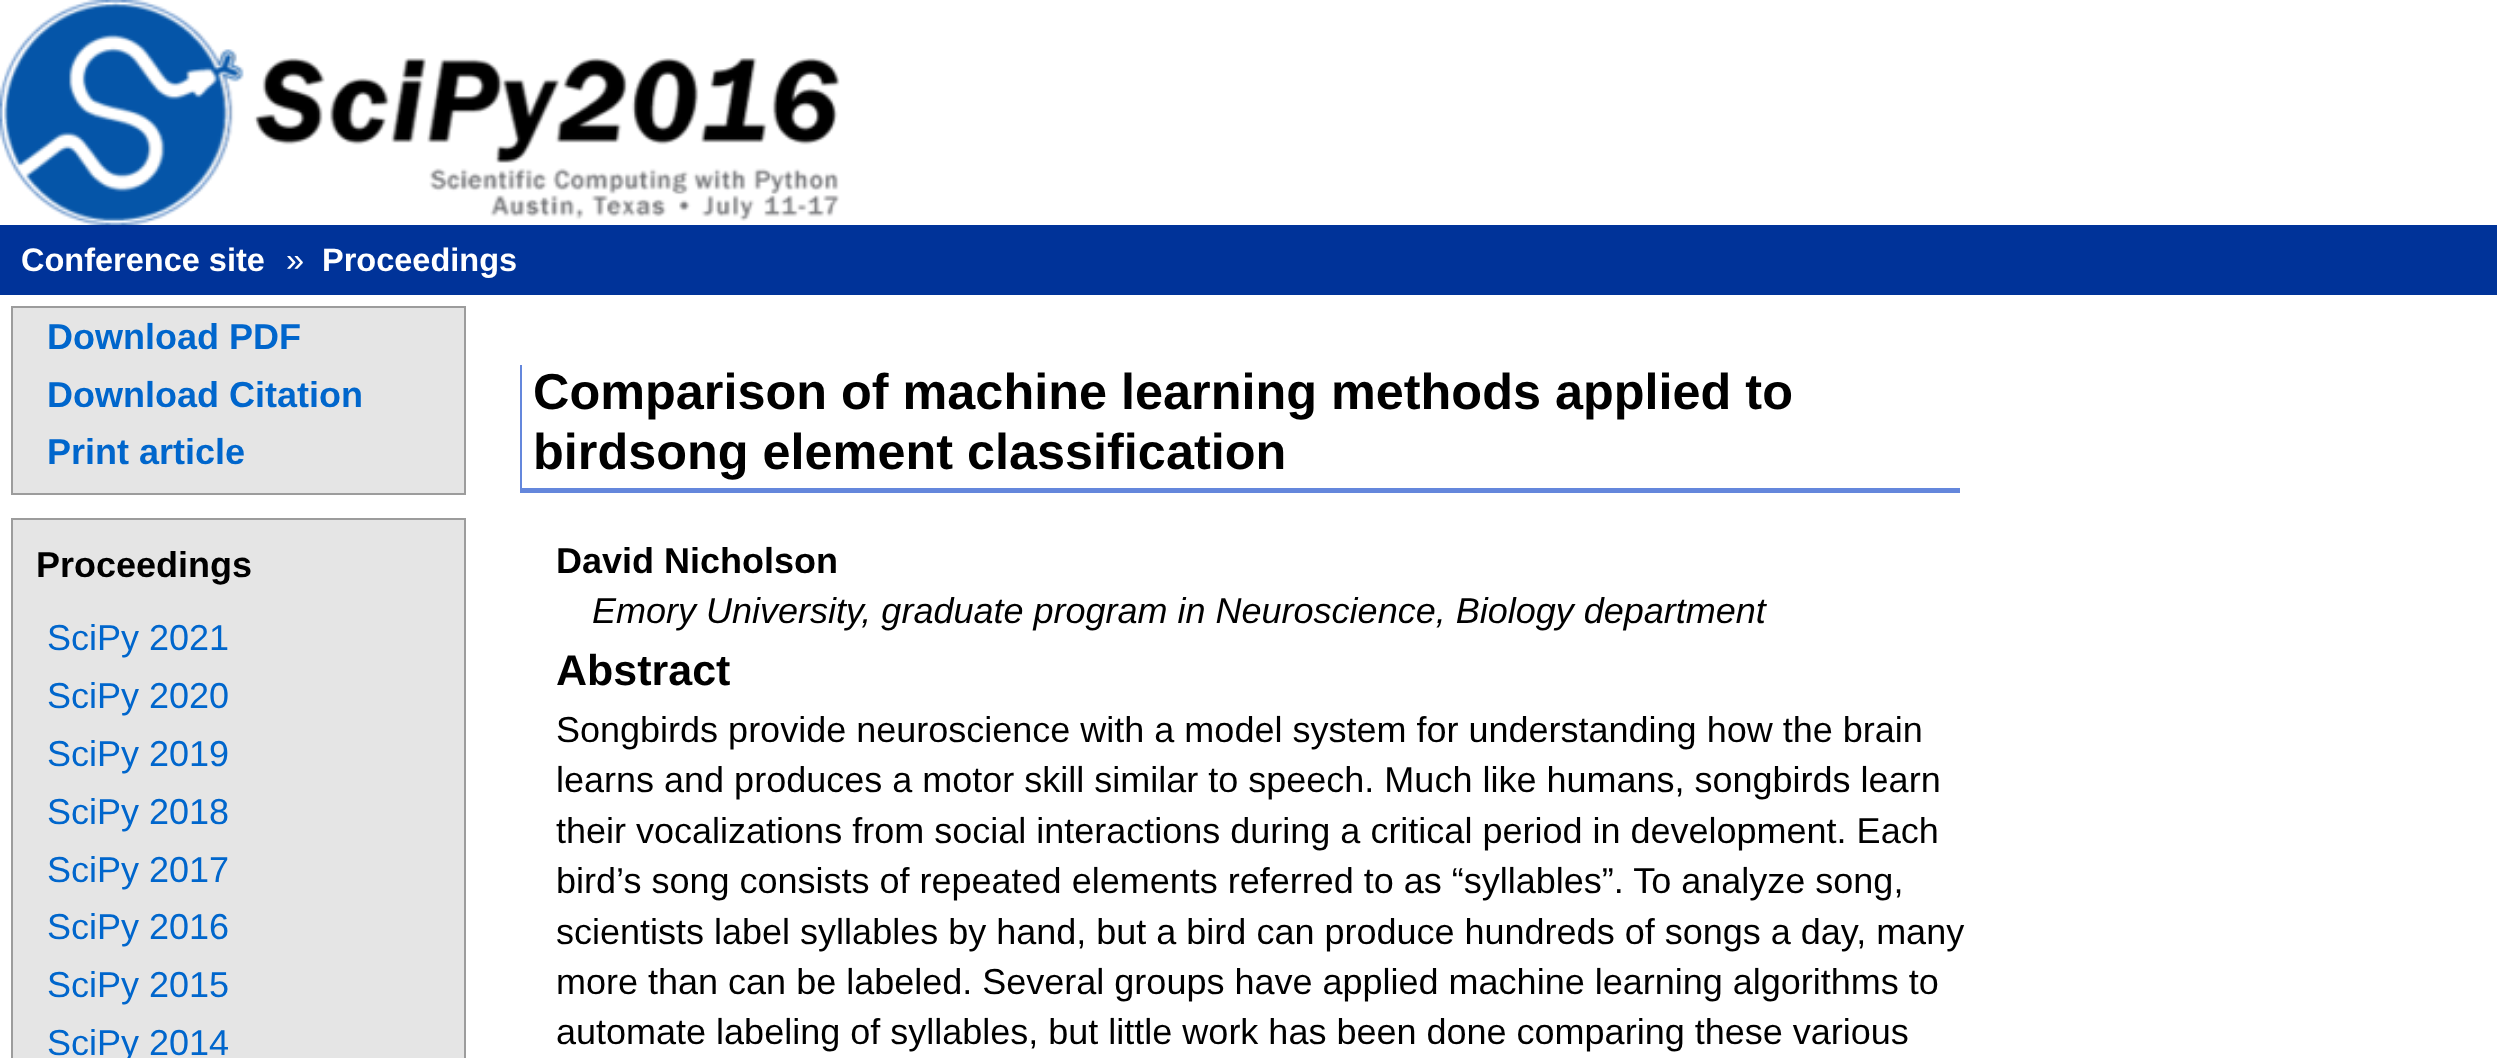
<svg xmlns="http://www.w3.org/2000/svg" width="2497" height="1058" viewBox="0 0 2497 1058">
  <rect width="100%" height="100%" fill="rgb(255,255,255)"/>
  <image x="0" y="0" width="840" height="225" href="pic1.png"/>
  <rect x="0" y="225" width="2497" height="70" fill="rgb(0,51,153)"/>
  <text x="21" y="271" font-family="Liberation Sans" font-size="32.5" font-weight="bold" fill="rgb(255,255,255)">Conference site</text>
  <text x="286" y="271" font-family="Liberation Sans" font-size="32.5" fill="rgb(255,255,255)">»</text>
  <text x="322" y="271" font-family="Liberation Sans" font-size="32.5" font-weight="bold" fill="rgb(255,255,255)">Proceedings</text>
  <rect x="12" y="307" width="453" height="187" fill="rgb(229,229,229)" stroke="rgb(156,156,156)" stroke-width="2"/>
  <g font-family="Liberation Sans" font-size="36" font-weight="bold" fill="rgb(0,102,204)">
    <text>
      <tspan x="47" y="349">Download PDF</tspan>
      <tspan x="47" y="407">Download Citation</tspan>
      <tspan x="47" y="464">Print article</tspan>
    </text>
  </g>
  <rect x="12" y="519" width="453" height="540" fill="rgb(229,229,229)" stroke="rgb(156,156,156)" stroke-width="2"/>
  <text x="36" y="577" font-family="Liberation Sans" font-size="36" font-weight="bold" fill="rgb(0,0,0)">Proceedings</text>
  <g font-family="Liberation Sans" font-size="36" fill="rgb(0,102,204)">
    <text>
      <tspan x="47" y="650">SciPy 2021</tspan>
      <tspan x="47" y="708">SciPy 2020</tspan>
      <tspan x="47" y="766">SciPy 2019</tspan>
      <tspan x="47" y="824">SciPy 2018</tspan>
      <tspan x="47" y="882">SciPy 2017</tspan>
      <tspan x="47" y="939">SciPy 2016</tspan>
      <tspan x="47" y="997">SciPy 2015</tspan>
      <tspan x="47" y="1055">SciPy 2014</tspan>
    </text>
  </g>
  <rect x="520" y="488" width="1440" height="5" fill="rgb(100,135,220)"/>
  <rect x="520" y="365" width="2" height="128" fill="rgb(100,135,220)"/>
  <g font-family="Liberation Sans" font-size="50.4" font-weight="bold" fill="rgb(0,0,0)">
    <text>
      <tspan x="533" y="409">Comparison of machine learning methods applied to</tspan>
      <tspan x="533" y="469">birdsong element classification</tspan>
    </text>
  </g>
  <text x="556" y="573" font-family="Liberation Sans" font-size="36" font-weight="bold" fill="rgb(0,0,0)">David Nicholson</text>
  <text x="592" y="623" font-family="Liberation Sans" font-size="36" font-style="italic" fill="rgb(0,0,0)">Emory University, graduate program in Neuroscience, Biology department</text>
  <text x="556" y="685" font-family="Liberation Sans" font-size="43" font-weight="bold" fill="rgb(0,0,0)">Abstract</text>
  <g font-family="Liberation Sans" font-size="36" fill="rgb(0,0,0)">
    <text>
      <tspan x="556" y="742">Songbirds provide neuroscience with a model system for understanding how the brain</tspan>
      <tspan x="556" y="792">learns and produces a motor skill similar to speech. Much like humans, songbirds learn</tspan>
      <tspan x="556" y="843">their vocalizations from social interactions during a critical period in development. Each</tspan>
      <tspan x="556" y="893">bird’s song consists of repeated elements referred to as “syllables”. To analyze song,</tspan>
      <tspan x="556" y="944">scientists label syllables by hand, but a bird can produce hundreds of songs a day, many</tspan>
      <tspan x="556" y="994">more than can be labeled. Several groups have applied machine learning algorithms to</tspan>
      <tspan x="556" y="1044">automate labeling of syllables, but little work has been done comparing these various</tspan>
    </text>
  </g>
</svg>
